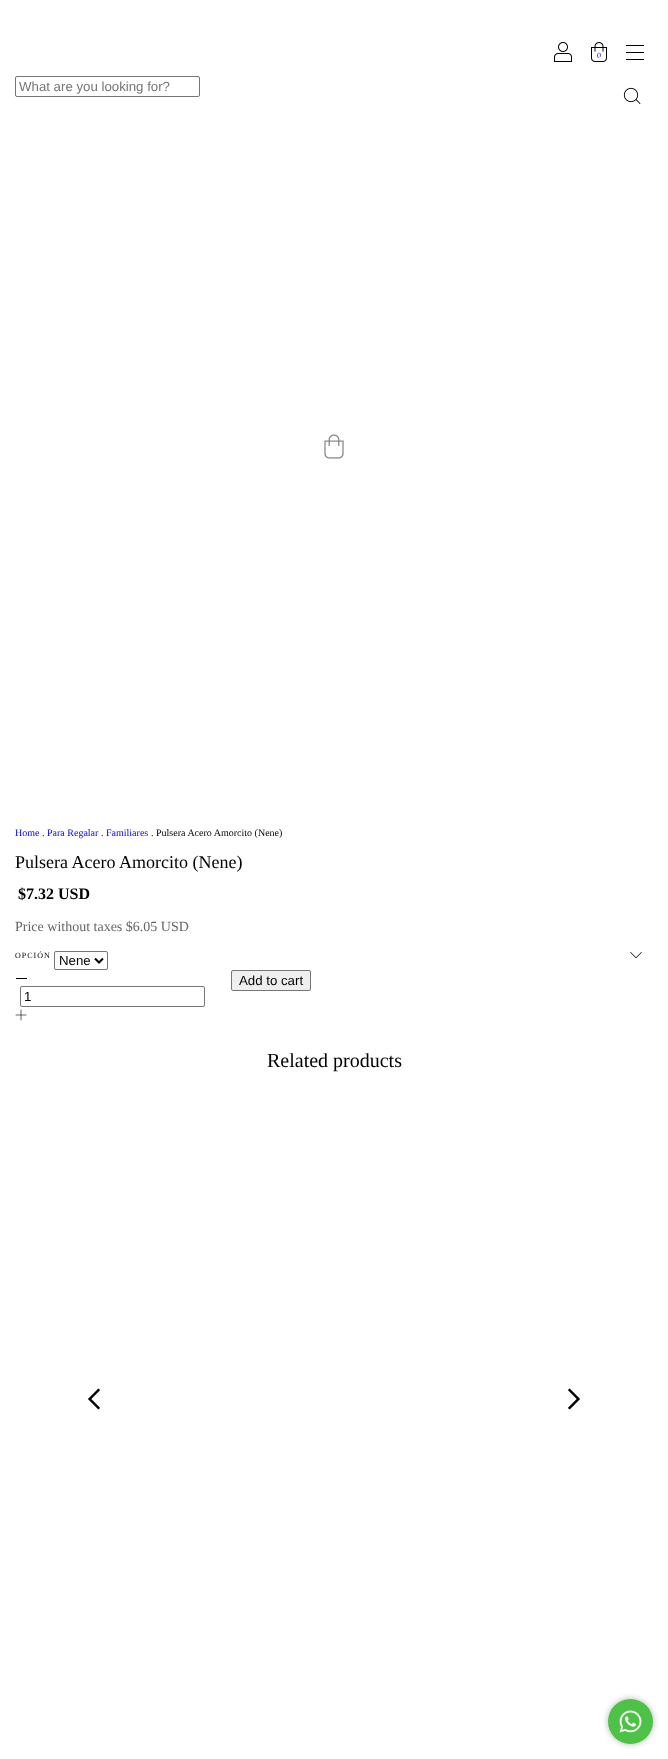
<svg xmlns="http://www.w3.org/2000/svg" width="668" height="1759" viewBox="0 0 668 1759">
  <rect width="100%" height="100%" fill="rgb(255,255,255)"/>
  <image x="554" y="42" width="18" height="20" href="pic1.png"/>
  <image x="591" y="42" width="16" height="20" href="pic2.png"/>
  <text x="597" y="58" font-family="Liberation Serif" font-size="8" fill="rgb(0,0,238)">0</text>
  <image x="626" y="45" width="18" height="15" href="pic3.png"/>
  <rect x="15.5" y="76.5" width="184" height="20" rx="1.5" fill="none" stroke="rgb(118,118,118)"/>
  <text x="19" y="91" font-family="Liberation Sans" font-size="13.25" fill="rgb(117,117,117)">What are you looking for?</text>
  <image x="623" y="87" width="18" height="17" href="pic4.png"/>
  <image x="324" y="434" width="20" height="25" href="pic5.png"/>
  <text x="15" y="836" font-family="Liberation Serif" font-size="10" fill="rgb(0,0,238)">Home</text>
  <text x="42" y="836" font-family="Liberation Serif" font-size="10" fill="rgb(0,0,0)">.</text>
  <text x="47" y="836" font-family="Liberation Serif" font-size="10" fill="rgb(0,0,238)">Para Regalar</text>
  <text x="101" y="836" font-family="Liberation Serif" font-size="10" fill="rgb(0,0,0)">.</text>
  <text x="106" y="836" font-family="Liberation Serif" font-size="10" fill="rgb(0,0,238)">Familiares</text>
  <text x="151" y="836" font-family="Liberation Serif" font-size="10" fill="rgb(0,0,0)">. Pulsera Acero Amorcito (Nene)</text>
  <text x="15" y="868" font-family="Liberation Serif" font-size="18" fill="rgb(0,0,0)">Pulsera Acero Amorcito (Nene)</text>
  <text x="18" y="899" font-family="Liberation Serif" font-size="16" font-weight="bold" fill="rgb(0,0,0)">$7.32 USD</text>
  <text x="15" y="931" font-family="Liberation Serif" font-size="14" fill="rgb(102,102,102)">Price without taxes $6.05 USD</text>
  <text x="15" y="958" font-family="Liberation Serif" font-size="8" letter-spacing="1" fill="rgb(0,0,0)">OPCIÓN</text>
  <rect x="54.5" y="951.5" width="53" height="18" rx="1.5" fill="none" stroke="rgb(118,118,118)"/>
  <path d="M95 958.5L99 962.5L103 958.5" fill="none" stroke="rgb(0,0,0)" stroke-width="2"/>
  <text x="59" y="965" font-family="Liberation Sans" font-size="13.25" fill="rgb(0,0,0)">Nene</text>
  <image x="630" y="952" width="12" height="7" href="pic6.png"/>
  <rect x="231.5" y="970.5" width="79" height="20" rx="1.5" fill="rgb(239,239,239)" stroke="rgb(118,118,118)"/>
  <text x="239" y="985" font-family="Liberation Sans" font-size="13.25" fill="rgb(0,0,0)">Add to cart</text>
  <rect x="16" y="978" width="11" height="1" fill="rgb(0,0,0)"/>
  <rect x="20.5" y="986.5" width="184" height="20" rx="1.5" fill="none" stroke="rgb(118,118,118)"/>
  <text x="24" y="1001" font-family="Liberation Sans" font-size="13.25" fill="rgb(0,0,0)">1</text>
  <image x="15" y="1009" width="12" height="12" href="pic7.png"/>
  <text x="267" y="1067" font-family="Liberation Serif" font-size="20" fill="rgb(0,0,0)">Related products</text>
  <image x="88" y="1388" width="12" height="22" href="pic8.png"/>
  <image x="568" y="1388" width="12" height="22" href="pic9.png"/>
  <rect x="608" y="1699" width="45" height="45" rx="22.5" fill="rgba(0,0,0,0.3)" filter="blur(3px)"/>
  <circle cx="630.5" cy="1721.5" r="22.5" fill="rgb(77,194,71)"/>
  <image x="619" y="1710" width="23" height="23" href="pic10.png"/>
</svg>
